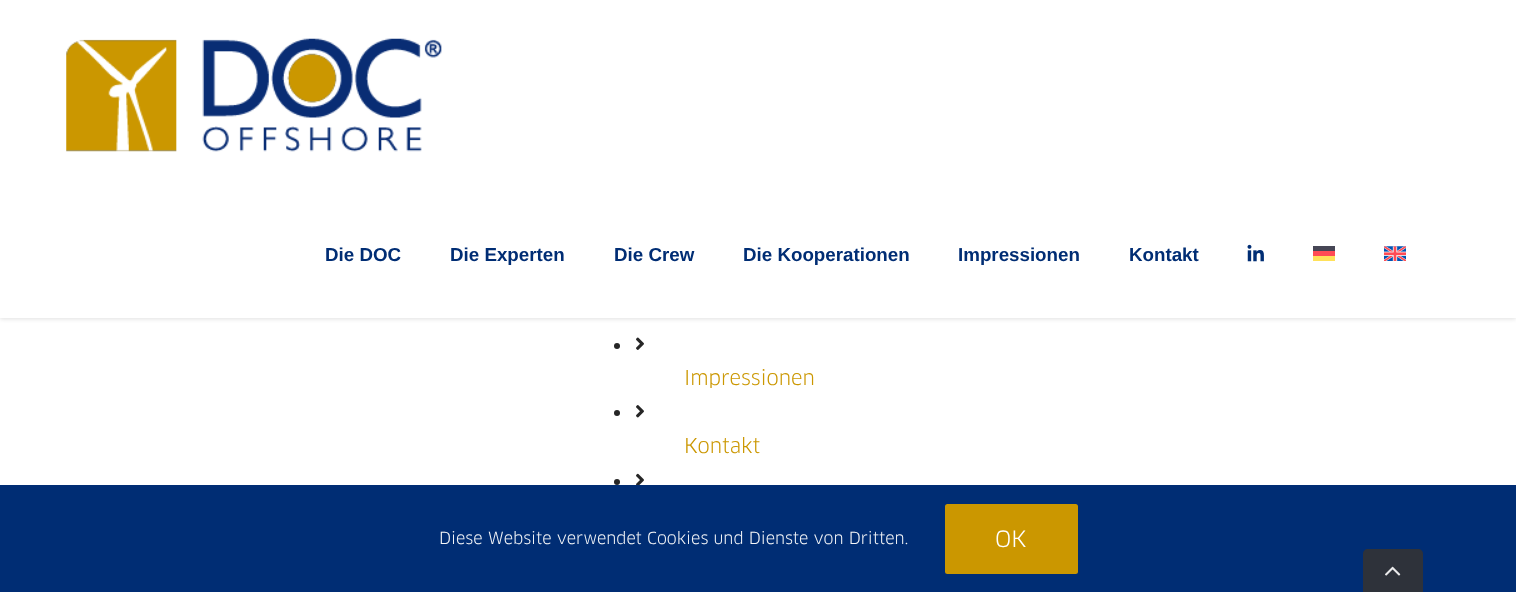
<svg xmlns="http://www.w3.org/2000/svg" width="1516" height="592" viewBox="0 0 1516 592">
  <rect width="100%" height="100%" fill="rgb(255,255,255)"/>
  <rect x="0" y="1" width="1516" height="318" fill="rgba(0,0,0,0.12)" filter="blur(2px)"/>
  <rect x="0" y="0" width="1516" height="318" fill="rgb(255,255,255)"/>
  <image x="66" y="38" width="376" height="114" href="pic1.png"/>
  <g font-family="Liberation Sans" font-size="18.75" font-weight="bold" fill="rgb(0,45,116)">
    <text x="325" y="261">Die DOC</text>
    <text x="450" y="261">Die Experten</text>
    <text x="614" y="261">Die Crew</text>
    <text x="743" y="261">Die Kooperationen</text>
    <text x="958" y="261">Impressionen</text>
    <text x="1129" y="261">Kontakt</text>
  </g>
  <image x="1247" y="244" width="17" height="18" href="pic2.png"/>
  <rect x="1313" y="251" width="22" height="5" fill="rgb(255,75,85)"/>
  <rect x="1313" y="256" width="22" height="5" fill="rgb(255,225,90)"/>
  <rect x="1313" y="246" width="22" height="5" fill="rgb(70,70,85)"/>
  <image x="1384" y="246" width="22" height="15" href="pic3.png"/>
  <circle cx="617" cy="346" r="3" fill="rgb(38,38,38)"/>
  <image x="636" y="337" width="8" height="13" href="pic4.png"/>
  <text x="684" y="385" font-family="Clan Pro" font-size="20" fill="rgb(203,151,0)">Impressionen</text>
  <circle cx="617" cy="413" r="3" fill="rgb(38,38,38)"/>
  <image x="636" y="405" width="8" height="13" href="pic5.png"/>
  <text x="684" y="453" font-family="Clan Pro" font-size="20" fill="rgb(203,151,0)">Kontakt</text>
  <circle cx="617" cy="482" r="3" fill="rgb(38,38,38)"/>
  <image x="636" y="473" width="8" height="12" href="pic6.png"/>
  <rect x="0" y="485" width="1516" height="107" fill="rgb(0,45,116)"/>
  <text x="439" y="544" font-family="Clan Pro" font-size="16.25" fill="rgb(244,246,248)">Diese Website verwendet Cookies und Dienste von Dritten.</text>
  <rect x="945" y="504" width="133" height="70" rx="2.5" fill="rgb(203,151,0)"/>
  <text x="995" y="547" font-family="Clan Pro" font-size="22" fill="rgb(255,255,255)">OK</text>
  <path d="M1368 549H1418C1421 549 1423 551 1423 554V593H1363V554C1363 551 1365 549 1368 549Z" fill="rgb(46,50,58)"/>
  <image x="1385" y="566" width="16" height="10" href="pic7.png"/>
</svg>
